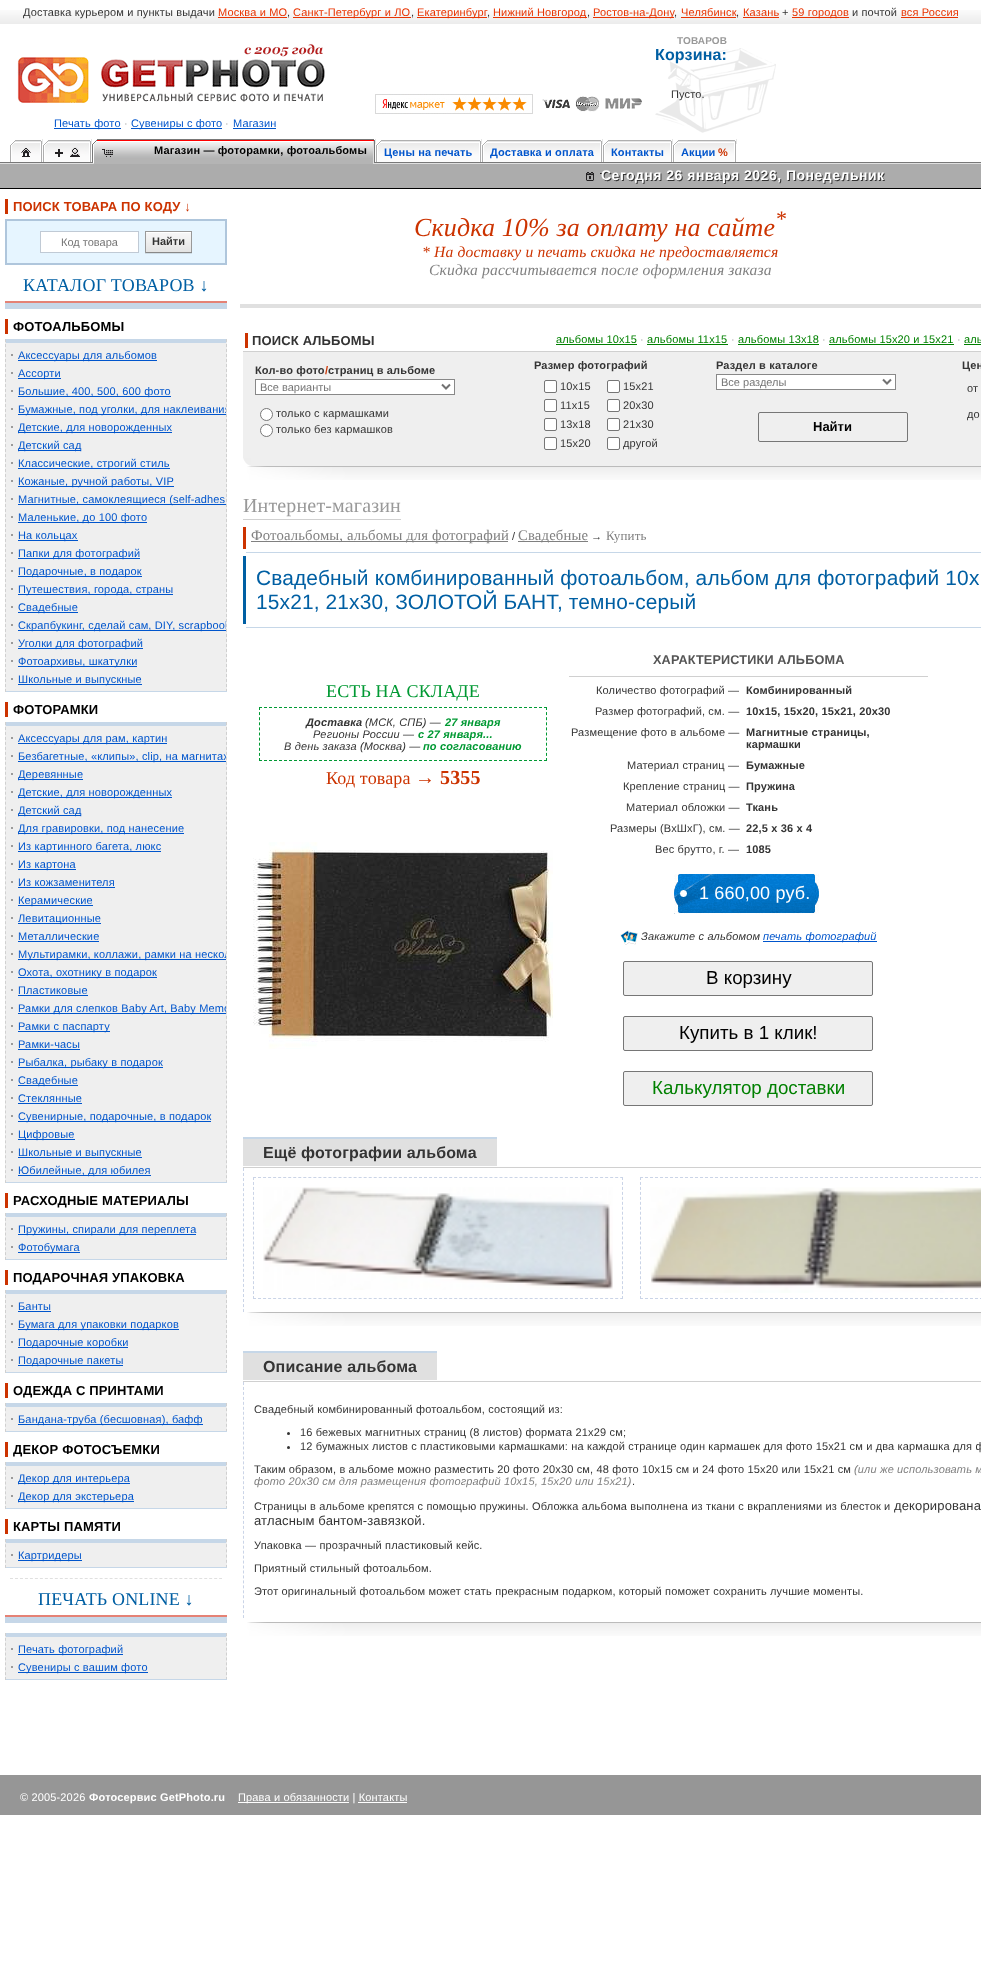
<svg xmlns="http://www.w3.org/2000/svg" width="981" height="1983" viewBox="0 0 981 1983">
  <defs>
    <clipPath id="clip1"><rect x="44" y="236" width="91" height="12"/></clipPath>
    <clipPath id="clip2"><rect x="6" y="343" width="220" height="348"/></clipPath>
    <clipPath id="clip3"><rect x="6" y="726" width="220" height="456"/></clipPath>
  </defs>
  <rect width="100%" height="100%" fill="rgb(255,255,255)"/>
  <image x="0" y="10" width="981" height="14" href="pic1.png"/>
  <text x="23" y="16" font-family="Liberation Sans" font-size="11" letter-spacing="0.15" fill="rgb(52,52,52)">Доставка курьером и пункты выдачи</text>
  <text x="218" y="16" font-family="Liberation Sans" font-size="11" letter-spacing="0.15" fill="rgb(233,51,1)">Москва и МО</text>
  <rect x="218" y="17" width="69" height="1" fill="rgb(233,51,1)"/>
  <text x="287" y="16" font-family="Liberation Sans" font-size="11" letter-spacing="0.15" fill="rgb(52,52,52)">,</text>
  <rect x="293" y="17" width="118" height="1" fill="rgb(233,51,1)"/>
  <text x="293" y="16" font-family="Liberation Sans" font-size="11" letter-spacing="0.15" fill="rgb(233,51,1)">Санкт-Петербург и ЛО</text>
  <text x="411" y="16" font-family="Liberation Sans" font-size="11" letter-spacing="0.15" fill="rgb(52,52,52)">,</text>
  <rect x="417" y="17" width="70" height="1" fill="rgb(233,51,1)"/>
  <text x="417" y="16" font-family="Liberation Sans" font-size="11" letter-spacing="0.15" fill="rgb(233,51,1)">Екатеринбург</text>
  <rect x="493" y="17" width="94" height="1" fill="rgb(233,51,1)"/>
  <text x="493" y="16" font-family="Liberation Sans" font-size="11" letter-spacing="0.15" fill="rgb(233,51,1)">Нижний Новгород</text>
  <rect x="593" y="17" width="81" height="1" fill="rgb(233,51,1)"/>
  <g font-family="Liberation Sans" font-size="11" letter-spacing="0.15" fill="rgb(233,51,1)">
    <text x="593" y="16">Ростов-на-Дону</text>
    <text x="681" y="16">Челябинск</text>
  </g>
  <rect x="681" y="17" width="55" height="1" fill="rgb(233,51,1)"/>
  <text x="743" y="16" font-family="Liberation Sans" font-size="11" letter-spacing="0.15" fill="rgb(233,51,1)">Казань</text>
  <rect x="743" y="17" width="36" height="1" fill="rgb(233,51,1)"/>
  <text x="782" y="16" font-family="Liberation Sans" font-size="11" letter-spacing="0.15" fill="rgb(52,52,52)">+</text>
  <rect x="792" y="17" width="57" height="1" fill="rgb(233,51,1)"/>
  <text x="792" y="16" font-family="Liberation Sans" font-size="11" letter-spacing="0.15" fill="rgb(233,51,1)">59 городов</text>
  <text x="852" y="16" font-family="Liberation Sans" font-size="11" letter-spacing="0.15" fill="rgb(52,52,52)">и почтой</text>
  <text x="901" y="16" font-family="Liberation Sans" font-size="11" letter-spacing="0.15" fill="rgb(233,51,1)">вся Россия</text>
  <rect x="901" y="17" width="57" height="1" fill="rgb(233,51,1)"/>
  <g font-family="Liberation Sans" font-size="11" letter-spacing="0.15" fill="rgb(52,52,52)">
    <text x="487" y="16">,</text>
    <text x="587" y="16">,</text>
    <text x="674" y="16">,</text>
    <text x="736" y="16">,</text>
  </g>
  <image x="655" y="48" width="121" height="85" href="pic2.png"/>
  <text x="677" y="44" font-family="Liberation Sans" font-size="10" font-weight="bold" letter-spacing="0.15" fill="rgb(153,153,153)">ТОВАРОВ</text>
  <text x="655" y="60" font-family="Liberation Sans" font-size="16" font-weight="bold" letter-spacing="0.15" fill="rgb(0,95,163)">Корзина:</text>
  <text x="671" y="98" font-family="Liberation Sans" font-size="11" letter-spacing="0.15" fill="rgb(52,52,52)">Пусто.</text>
  <image x="375" y="94" width="158" height="20" href="pic3.png"/>
  <image x="542" y="96" width="100" height="16" href="pic4.png"/>
  <image x="17" y="44" width="308" height="59" href="pic5.png"/>
  <rect x="54" y="128" width="67" height="1" fill="rgb(0,85,204)"/>
  <text x="54" y="127" font-family="Liberation Sans" font-size="11" letter-spacing="0.15" fill="rgb(0,85,204)">Печать фото</text>
  <text x="124" y="127" font-family="Liberation Sans" font-size="11" letter-spacing="0.15" fill="rgb(153,153,153)">·</text>
  <rect x="131" y="128" width="91" height="1" fill="rgb(0,85,204)"/>
  <text x="131" y="127" font-family="Liberation Sans" font-size="11" letter-spacing="0.15" fill="rgb(0,85,204)">Сувениры с фото</text>
  <text x="225" y="127" font-family="Liberation Sans" font-size="11" letter-spacing="0.15" fill="rgb(153,153,153)">·</text>
  <text x="233" y="127" font-family="Liberation Sans" font-size="11" letter-spacing="0.15" fill="rgb(0,85,204)">Магазин</text>
  <rect x="233" y="128" width="43" height="1" fill="rgb(0,85,204)"/>
  <rect x="15" y="139" width="28" height="5" fill="rgb(229,229,229)"/>
  <image x="10" y="139" width="8" height="25" href="pic6.png"/>
  <image x="18" y="139" width="16" height="25" href="pic7.png"/>
  <image x="21" y="148" width="10" height="9" href="pic8.png"/>
  <image x="34" y="139" width="8" height="25" href="pic9.png"/>
  <image x="42" y="144" width="1" height="20" href="pic10.png"/>
  <rect x="48" y="139" width="44" height="5" fill="rgb(229,229,229)"/>
  <image x="43" y="139" width="8" height="25" href="pic6.png"/>
  <image x="51" y="139" width="32" height="25" href="pic11.png"/>
  <image x="55" y="149" width="8" height="8" href="pic12.png"/>
  <image x="70" y="147" width="10" height="10" href="pic13.png"/>
  <image x="83" y="139" width="8" height="25" href="pic9.png"/>
  <image x="91" y="144" width="1" height="20" href="pic10.png"/>
  <rect x="375" y="139" width="1" height="5" fill="rgb(229,229,229)"/>
  <image x="92" y="139" width="8" height="25" href="pic14.png"/>
  <image x="100" y="139" width="267" height="25" href="pic15.png"/>
  <image x="102" y="149" width="11" height="8" href="pic16.png"/>
  <text x="154" y="154" font-family="Liberation Sans" font-size="11" font-weight="bold" letter-spacing="0.15" fill="rgb(0,0,0)">Магазин — фоторамки, фотоальбомы</text>
  <image x="367" y="139" width="8" height="25" href="pic17.png"/>
  <image x="375" y="144" width="1" height="20" href="pic10.png"/>
  <rect x="381" y="139" width="101" height="5" fill="rgb(229,229,229)"/>
  <image x="376" y="139" width="8" height="25" href="pic6.png"/>
  <image x="384" y="139" width="89" height="25" href="pic18.png"/>
  <text x="384" y="156" font-family="Liberation Sans" font-size="11" font-weight="bold" letter-spacing="0.15" fill="rgb(0,85,204)">Цены на печать</text>
  <image x="473" y="139" width="8" height="25" href="pic9.png"/>
  <image x="481" y="144" width="1" height="20" href="pic10.png"/>
  <rect x="487" y="139" width="116" height="5" fill="rgb(229,229,229)"/>
  <image x="482" y="139" width="8" height="25" href="pic6.png"/>
  <image x="490" y="139" width="104" height="25" href="pic19.png"/>
  <text x="490" y="156" font-family="Liberation Sans" font-size="11" font-weight="bold" letter-spacing="0.15" fill="rgb(0,85,204)">Доставка и оплата</text>
  <image x="594" y="139" width="8" height="25" href="pic9.png"/>
  <image x="602" y="144" width="1" height="20" href="pic10.png"/>
  <rect x="608" y="139" width="65" height="5" fill="rgb(229,229,229)"/>
  <image x="603" y="139" width="8" height="25" href="pic6.png"/>
  <image x="611" y="139" width="53" height="25" href="pic20.png"/>
  <text x="611" y="156" font-family="Liberation Sans" font-size="11" font-weight="bold" letter-spacing="0.15" fill="rgb(0,85,204)">Контакты</text>
  <image x="664" y="139" width="8" height="25" href="pic9.png"/>
  <image x="672" y="144" width="1" height="20" href="pic10.png"/>
  <rect x="678" y="139" width="59" height="5" fill="rgb(229,229,229)"/>
  <image x="673" y="139" width="8" height="25" href="pic6.png"/>
  <image x="681" y="139" width="47" height="25" href="pic21.png"/>
  <text x="681" y="156" font-family="Liberation Sans" font-size="11" font-weight="bold" letter-spacing="0.15" fill="rgb(0,85,204)">Акции</text>
  <text x="718" y="156" font-family="Liberation Sans" font-size="11" font-weight="bold" letter-spacing="0.15" fill="rgb(204,51,0)">%</text>
  <image x="728" y="139" width="8" height="25" href="pic9.png"/>
  <image x="736" y="144" width="1" height="20" href="pic10.png"/>
  <image x="0" y="162" width="10" height="2" href="pic22.png"/>
  <image x="737" y="162" width="244" height="2" href="pic23.png"/>
  <rect x="0" y="164" width="981" height="24" fill="rgb(172,172,172)"/>
  <rect x="0" y="188" width="981" height="1" fill="rgb(0,0,0)"/>
  <image x="586" y="172" width="16" height="9" href="pic24.png"/>
  <text x="602" y="181" font-family="Liberation Sans" font-size="14" font-weight="bold" letter-spacing="0.5" fill="rgb(52,52,52)">Сегодня 26 января 2026, Понедельник</text>
  <text x="601" y="180" font-family="Liberation Sans" font-size="14" font-weight="bold" letter-spacing="0.5" fill="rgb(255,255,255)">Сегодня 26 января 2026, Понедельник</text>
  <rect x="5" y="199" width="3" height="15" fill="rgb(204,51,0)"/>
  <text x="13" y="211" font-family="Liberation Sans" font-size="13" font-weight="bold" letter-spacing="0.15" fill="rgb(204,51,0)">ПОИСК ТОВАРА ПО КОДУ ↓</text>
  <rect x="6" y="220" width="220" height="44" fill="rgb(230,245,255)" stroke="rgb(175,198,220)" stroke-width="2"/>
  <rect x="40.5" y="231.5" width="98" height="21" fill="rgb(255,255,255)" stroke="rgb(192,202,213)"/>
  <g clip-path="url(#clip1)">
    <text x="61" y="246" font-family="Liberation Sans" font-size="11" fill="rgb(117,117,117)">Код товара</text>
  </g>
  <rect x="145" y="253" width="47" height="1" fill="rgb(207,221,230)"/>
  <image x="146" y="232" width="45" height="20" href="pic25.png"/>
  <rect x="145" y="231" width="47" height="1" fill="rgb(153,153,153)"/>
  <rect x="191" y="231" width="1" height="22" fill="rgb(153,153,153)"/>
  <rect x="145" y="252" width="47" height="1" fill="rgb(136,136,136)"/>
  <rect x="145" y="231" width="1" height="22" fill="rgb(153,153,153)"/>
  <text x="152" y="245" font-family="Liberation Sans" font-size="11" font-weight="bold" fill="rgb(52,52,52)">Найти</text>
  <text x="23" y="291" font-family="Liberation Serif" font-size="18" letter-spacing="0.15" fill="rgb(0,95,163)">КАТАЛОГ ТОВАРОВ ↓</text>
  <rect x="5" y="301" width="222" height="2" fill="rgb(229,130,117)"/>
  <rect x="5" y="303" width="222" height="6" fill="rgb(198,215,232)"/>
  <rect x="5" y="319" width="3" height="15" fill="rgb(204,51,0)"/>
  <text x="13" y="331" font-family="Liberation Sans" font-size="13" font-weight="bold" letter-spacing="0.15" fill="rgb(0,0,0)">ФОТОАЛЬБОМЫ</text>
  <rect x="5" y="342" width="222" height="349" fill="rgb(239,239,239)"/>
  <path d="M5 339H227L226 343H6Z" fill="rgb(198,215,232)"/>
  <path d="M226.5 339V692" fill="none" stroke="rgb(208,208,208)" stroke-dasharray="3 2"/>
  <rect x="5" y="691" width="222" height="1" fill="rgb(198,215,232)"/>
  <path d="M5.5 339V692" fill="none" stroke="rgb(208,208,208)" stroke-dasharray="3 2"/>
  <rect x="11" y="354" width="2" height="2" fill="rgb(154,154,154)"/>
  <rect x="18" y="360" width="139" height="1" fill="rgb(0,85,204)"/>
  <text x="18" y="359" font-family="Liberation Sans" font-size="11" letter-spacing="0.15" fill="rgb(0,85,204)">Аксессуары для альбомов</text>
  <rect x="11" y="372" width="2" height="2" fill="rgb(154,154,154)"/>
  <rect x="18" y="378" width="43" height="1" fill="rgb(0,85,204)"/>
  <text x="18" y="377" font-family="Liberation Sans" font-size="11" letter-spacing="0.15" fill="rgb(0,85,204)">Ассорти</text>
  <rect x="11" y="390" width="2" height="2" fill="rgb(154,154,154)"/>
  <rect x="18" y="396" width="153" height="1" fill="rgb(0,85,204)"/>
  <text x="18" y="395" font-family="Liberation Sans" font-size="11" letter-spacing="0.15" fill="rgb(0,85,204)">Большие, 400, 500, 600 фото</text>
  <rect x="11" y="408" width="2" height="2" fill="rgb(154,154,154)"/>
  <rect x="18" y="414" width="208" height="1" fill="rgb(0,85,204)"/>
  <g clip-path="url(#clip2)">
    <text x="18" y="413" font-family="Liberation Sans" font-size="11" letter-spacing="0.15" fill="rgb(0,85,204)">Бумажные, под уголки, для наклеивания</text>
  </g>
  <rect x="11" y="426" width="2" height="2" fill="rgb(154,154,154)"/>
  <rect x="18" y="432" width="154" height="1" fill="rgb(0,85,204)"/>
  <text x="18" y="431" font-family="Liberation Sans" font-size="11" letter-spacing="0.15" fill="rgb(0,85,204)">Детские, для новорожденных</text>
  <rect x="11" y="444" width="2" height="2" fill="rgb(154,154,154)"/>
  <rect x="18" y="450" width="63" height="1" fill="rgb(0,85,204)"/>
  <text x="18" y="449" font-family="Liberation Sans" font-size="11" letter-spacing="0.15" fill="rgb(0,85,204)">Детский сад</text>
  <rect x="11" y="462" width="2" height="2" fill="rgb(154,154,154)"/>
  <rect x="18" y="468" width="152" height="1" fill="rgb(0,85,204)"/>
  <text x="18" y="467" font-family="Liberation Sans" font-size="11" letter-spacing="0.15" fill="rgb(0,85,204)">Классические, строгий стиль</text>
  <rect x="11" y="480" width="2" height="2" fill="rgb(154,154,154)"/>
  <rect x="18" y="486" width="156" height="1" fill="rgb(0,85,204)"/>
  <text x="18" y="485" font-family="Liberation Sans" font-size="11" letter-spacing="0.15" fill="rgb(0,85,204)">Кожаные, ручной работы, VIP</text>
  <rect x="11" y="498" width="2" height="2" fill="rgb(154,154,154)"/>
  <rect x="18" y="504" width="208" height="1" fill="rgb(0,85,204)"/>
  <text x="18" y="503" font-family="Liberation Sans" font-size="11" letter-spacing="0.15" fill="rgb(0,85,204)">Магнитные, самоклеящиеся (self-adhes</text>
  <rect x="11" y="516" width="2" height="2" fill="rgb(154,154,154)"/>
  <rect x="18" y="522" width="129" height="1" fill="rgb(0,85,204)"/>
  <text x="18" y="521" font-family="Liberation Sans" font-size="11" letter-spacing="0.15" fill="rgb(0,85,204)">Маленькие, до 100 фото</text>
  <rect x="11" y="534" width="2" height="2" fill="rgb(154,154,154)"/>
  <rect x="18" y="540" width="60" height="1" fill="rgb(0,85,204)"/>
  <text x="18" y="539" font-family="Liberation Sans" font-size="11" letter-spacing="0.15" fill="rgb(0,85,204)">На кольцах</text>
  <rect x="11" y="552" width="2" height="2" fill="rgb(154,154,154)"/>
  <rect x="18" y="558" width="122" height="1" fill="rgb(0,85,204)"/>
  <text x="18" y="557" font-family="Liberation Sans" font-size="11" letter-spacing="0.15" fill="rgb(0,85,204)">Папки для фотографий</text>
  <rect x="11" y="570" width="2" height="2" fill="rgb(154,154,154)"/>
  <rect x="18" y="576" width="124" height="1" fill="rgb(0,85,204)"/>
  <text x="18" y="575" font-family="Liberation Sans" font-size="11" letter-spacing="0.15" fill="rgb(0,85,204)">Подарочные, в подарок</text>
  <rect x="11" y="588" width="2" height="2" fill="rgb(154,154,154)"/>
  <rect x="18" y="594" width="155" height="1" fill="rgb(0,85,204)"/>
  <text x="18" y="593" font-family="Liberation Sans" font-size="11" letter-spacing="0.15" fill="rgb(0,85,204)">Путешествия, города, страны</text>
  <rect x="11" y="606" width="2" height="2" fill="rgb(154,154,154)"/>
  <rect x="18" y="612" width="60" height="1" fill="rgb(0,85,204)"/>
  <text x="18" y="611" font-family="Liberation Sans" font-size="11" letter-spacing="0.15" fill="rgb(0,85,204)">Свадебные</text>
  <rect x="11" y="624" width="2" height="2" fill="rgb(154,154,154)"/>
  <rect x="18" y="630" width="208" height="1" fill="rgb(0,85,204)"/>
  <g clip-path="url(#clip2)">
    <text x="18" y="629" font-family="Liberation Sans" font-size="11" letter-spacing="0.15" fill="rgb(0,85,204)">Скрапбукинг, сделай сам, DIY, scrapbook</text>
  </g>
  <rect x="11" y="642" width="2" height="2" fill="rgb(154,154,154)"/>
  <rect x="18" y="648" width="125" height="1" fill="rgb(0,85,204)"/>
  <text x="18" y="647" font-family="Liberation Sans" font-size="11" letter-spacing="0.15" fill="rgb(0,85,204)">Уголки для фотографий</text>
  <rect x="11" y="660" width="2" height="2" fill="rgb(154,154,154)"/>
  <rect x="18" y="666" width="119" height="1" fill="rgb(0,85,204)"/>
  <text x="18" y="665" font-family="Liberation Sans" font-size="11" letter-spacing="0.15" fill="rgb(0,85,204)">Фотоархивы, шкатулки</text>
  <rect x="11" y="678" width="2" height="2" fill="rgb(154,154,154)"/>
  <rect x="18" y="684" width="124" height="1" fill="rgb(0,85,204)"/>
  <text x="18" y="683" font-family="Liberation Sans" font-size="11" letter-spacing="0.15" fill="rgb(0,85,204)">Школьные и выпускные</text>
  <rect x="5" y="702" width="3" height="15" fill="rgb(204,51,0)"/>
  <text x="13" y="714" font-family="Liberation Sans" font-size="13" font-weight="bold" letter-spacing="0.15" fill="rgb(0,0,0)">ФОТОРАМКИ</text>
  <rect x="5" y="725" width="222" height="457" fill="rgb(239,239,239)"/>
  <path d="M5 722H227L226 726H6Z" fill="rgb(198,215,232)"/>
  <path d="M226.5 722V1183" fill="none" stroke="rgb(208,208,208)" stroke-dasharray="3 1.98"/>
  <rect x="5" y="1182" width="222" height="1" fill="rgb(198,215,232)"/>
  <path d="M5.5 722V1183" fill="none" stroke="rgb(208,208,208)" stroke-dasharray="3 1.98"/>
  <rect x="11" y="737" width="2" height="2" fill="rgb(154,154,154)"/>
  <rect x="18" y="743" width="149" height="1" fill="rgb(0,85,204)"/>
  <text x="18" y="742" font-family="Liberation Sans" font-size="11" letter-spacing="0.15" fill="rgb(0,85,204)">Аксессуары для рам, картин</text>
  <rect x="11" y="755" width="2" height="2" fill="rgb(154,154,154)"/>
  <rect x="18" y="761" width="208" height="1" fill="rgb(0,85,204)"/>
  <g clip-path="url(#clip3)">
    <text x="18" y="760" font-family="Liberation Sans" font-size="11" letter-spacing="0.15" fill="rgb(0,85,204)">Безбагетные, «клипы», clip, на магнитах</text>
  </g>
  <rect x="11" y="773" width="2" height="2" fill="rgb(154,154,154)"/>
  <rect x="18" y="779" width="65" height="1" fill="rgb(0,85,204)"/>
  <text x="18" y="778" font-family="Liberation Sans" font-size="11" letter-spacing="0.15" fill="rgb(0,85,204)">Деревянные</text>
  <rect x="11" y="791" width="2" height="2" fill="rgb(154,154,154)"/>
  <rect x="18" y="797" width="154" height="1" fill="rgb(0,85,204)"/>
  <text x="18" y="796" font-family="Liberation Sans" font-size="11" letter-spacing="0.15" fill="rgb(0,85,204)">Детские, для новорожденных</text>
  <rect x="11" y="809" width="2" height="2" fill="rgb(154,154,154)"/>
  <rect x="18" y="815" width="63" height="1" fill="rgb(0,85,204)"/>
  <text x="18" y="814" font-family="Liberation Sans" font-size="11" letter-spacing="0.15" fill="rgb(0,85,204)">Детский сад</text>
  <rect x="11" y="827" width="2" height="2" fill="rgb(154,154,154)"/>
  <rect x="18" y="833" width="166" height="1" fill="rgb(0,85,204)"/>
  <text x="18" y="832" font-family="Liberation Sans" font-size="11" letter-spacing="0.15" fill="rgb(0,85,204)">Для гравировки, под нанесение</text>
  <rect x="11" y="845" width="2" height="2" fill="rgb(154,154,154)"/>
  <rect x="18" y="851" width="143" height="1" fill="rgb(0,85,204)"/>
  <text x="18" y="850" font-family="Liberation Sans" font-size="11" letter-spacing="0.15" fill="rgb(0,85,204)">Из картинного багета, люкс</text>
  <rect x="11" y="863" width="2" height="2" fill="rgb(154,154,154)"/>
  <rect x="18" y="869" width="58" height="1" fill="rgb(0,85,204)"/>
  <text x="18" y="868" font-family="Liberation Sans" font-size="11" letter-spacing="0.15" fill="rgb(0,85,204)">Из картона</text>
  <rect x="11" y="881" width="2" height="2" fill="rgb(154,154,154)"/>
  <text x="18" y="886" font-family="Liberation Sans" font-size="11" letter-spacing="0.15" fill="rgb(0,85,204)">Из кожзаменителя</text>
  <rect x="18" y="887" width="97" height="1" fill="rgb(0,85,204)"/>
  <rect x="11" y="899" width="2" height="2" fill="rgb(154,154,154)"/>
  <rect x="18" y="905" width="75" height="1" fill="rgb(0,85,204)"/>
  <text x="18" y="904" font-family="Liberation Sans" font-size="11" letter-spacing="0.15" fill="rgb(0,85,204)">Керамические</text>
  <rect x="11" y="917" width="2" height="2" fill="rgb(154,154,154)"/>
  <rect x="18" y="923" width="83" height="1" fill="rgb(0,85,204)"/>
  <text x="18" y="922" font-family="Liberation Sans" font-size="11" letter-spacing="0.15" fill="rgb(0,85,204)">Левитационные</text>
  <rect x="11" y="935" width="2" height="2" fill="rgb(154,154,154)"/>
  <text x="18" y="940" font-family="Liberation Sans" font-size="11" letter-spacing="0.15" fill="rgb(0,85,204)">Металлические</text>
  <rect x="18" y="941" width="81" height="1" fill="rgb(0,85,204)"/>
  <rect x="11" y="953" width="2" height="2" fill="rgb(154,154,154)"/>
  <rect x="18" y="959" width="208" height="1" fill="rgb(0,85,204)"/>
  <g clip-path="url(#clip3)">
    <text x="18" y="958" font-family="Liberation Sans" font-size="11" letter-spacing="0.15" fill="rgb(0,85,204)">Мультирамки, коллажи, рамки на нескол</text>
  </g>
  <rect x="11" y="971" width="2" height="2" fill="rgb(154,154,154)"/>
  <rect x="18" y="977" width="139" height="1" fill="rgb(0,85,204)"/>
  <text x="18" y="976" font-family="Liberation Sans" font-size="11" letter-spacing="0.15" fill="rgb(0,85,204)">Охота, охотнику в подарок</text>
  <rect x="11" y="989" width="2" height="2" fill="rgb(154,154,154)"/>
  <text x="18" y="994" font-family="Liberation Sans" font-size="11" letter-spacing="0.15" fill="rgb(0,85,204)">Пластиковые</text>
  <rect x="18" y="995" width="70" height="1" fill="rgb(0,85,204)"/>
  <rect x="11" y="1007" width="2" height="2" fill="rgb(154,154,154)"/>
  <rect x="18" y="1013" width="208" height="1" fill="rgb(0,85,204)"/>
  <g clip-path="url(#clip3)">
    <text x="18" y="1012" font-family="Liberation Sans" font-size="11" letter-spacing="0.15" fill="rgb(0,85,204)">Рамки для слепков Baby Art, Baby Memo</text>
  </g>
  <rect x="11" y="1025" width="2" height="2" fill="rgb(154,154,154)"/>
  <rect x="18" y="1031" width="92" height="1" fill="rgb(0,85,204)"/>
  <text x="18" y="1030" font-family="Liberation Sans" font-size="11" letter-spacing="0.15" fill="rgb(0,85,204)">Рамки с паспарту</text>
  <rect x="11" y="1043" width="2" height="2" fill="rgb(154,154,154)"/>
  <text x="18" y="1048" font-family="Liberation Sans" font-size="11" letter-spacing="0.15" fill="rgb(0,85,204)">Рамки-часы</text>
  <rect x="18" y="1049" width="62" height="1" fill="rgb(0,85,204)"/>
  <rect x="11" y="1061" width="2" height="2" fill="rgb(154,154,154)"/>
  <rect x="18" y="1067" width="145" height="1" fill="rgb(0,85,204)"/>
  <text x="18" y="1066" font-family="Liberation Sans" font-size="11" letter-spacing="0.15" fill="rgb(0,85,204)">Рыбалка, рыбаку в подарок</text>
  <rect x="11" y="1079" width="2" height="2" fill="rgb(154,154,154)"/>
  <rect x="18" y="1085" width="60" height="1" fill="rgb(0,85,204)"/>
  <text x="18" y="1084" font-family="Liberation Sans" font-size="11" letter-spacing="0.15" fill="rgb(0,85,204)">Свадебные</text>
  <rect x="11" y="1097" width="2" height="2" fill="rgb(154,154,154)"/>
  <text x="18" y="1102" font-family="Liberation Sans" font-size="11" letter-spacing="0.15" fill="rgb(0,85,204)">Стеклянные</text>
  <rect x="18" y="1103" width="64" height="1" fill="rgb(0,85,204)"/>
  <rect x="11" y="1115" width="2" height="2" fill="rgb(154,154,154)"/>
  <rect x="18" y="1121" width="193" height="1" fill="rgb(0,85,204)"/>
  <text x="18" y="1120" font-family="Liberation Sans" font-size="11" letter-spacing="0.15" fill="rgb(0,85,204)">Сувенирные, подарочные, в подарок</text>
  <rect x="11" y="1133" width="2" height="2" fill="rgb(154,154,154)"/>
  <rect x="18" y="1139" width="57" height="1" fill="rgb(0,85,204)"/>
  <text x="18" y="1138" font-family="Liberation Sans" font-size="11" letter-spacing="0.15" fill="rgb(0,85,204)">Цифровые</text>
  <rect x="11" y="1151" width="2" height="2" fill="rgb(154,154,154)"/>
  <rect x="18" y="1157" width="124" height="1" fill="rgb(0,85,204)"/>
  <text x="18" y="1156" font-family="Liberation Sans" font-size="11" letter-spacing="0.15" fill="rgb(0,85,204)">Школьные и выпускные</text>
  <rect x="11" y="1169" width="2" height="2" fill="rgb(154,154,154)"/>
  <rect x="18" y="1175" width="133" height="1" fill="rgb(0,85,204)"/>
  <text x="18" y="1174" font-family="Liberation Sans" font-size="11" letter-spacing="0.15" fill="rgb(0,85,204)">Юбилейные, для юбилея</text>
  <rect x="5" y="1193" width="3" height="15" fill="rgb(204,51,0)"/>
  <text x="13" y="1205" font-family="Liberation Sans" font-size="13" font-weight="bold" letter-spacing="0.15" fill="rgb(0,0,0)">РАСХОДНЫЕ МАТЕРИАЛЫ</text>
  <rect x="5" y="1216" width="222" height="43" fill="rgb(239,239,239)"/>
  <path d="M5 1213H227L226 1217H6Z" fill="rgb(198,215,232)"/>
  <path d="M226.5 1213V1260" fill="none" stroke="rgb(208,208,208)" stroke-dasharray="3 1.89"/>
  <rect x="5" y="1259" width="222" height="1" fill="rgb(198,215,232)"/>
  <path d="M5.5 1213V1260" fill="none" stroke="rgb(208,208,208)" stroke-dasharray="3 1.89"/>
  <rect x="11" y="1228" width="2" height="2" fill="rgb(154,154,154)"/>
  <rect x="18" y="1234" width="178" height="1" fill="rgb(0,85,204)"/>
  <text x="18" y="1233" font-family="Liberation Sans" font-size="11" letter-spacing="0.15" fill="rgb(0,85,204)">Пружины, спирали для переплета</text>
  <rect x="11" y="1246" width="2" height="2" fill="rgb(154,154,154)"/>
  <rect x="18" y="1252" width="62" height="1" fill="rgb(0,85,204)"/>
  <text x="18" y="1251" font-family="Liberation Sans" font-size="11" letter-spacing="0.15" fill="rgb(0,85,204)">Фотобумага</text>
  <rect x="5" y="1270" width="3" height="15" fill="rgb(204,51,0)"/>
  <text x="13" y="1282" font-family="Liberation Sans" font-size="13" font-weight="bold" letter-spacing="0.15" fill="rgb(0,0,0)">ПОДАРОЧНАЯ УПАКОВКА</text>
  <rect x="5" y="1293" width="222" height="79" fill="rgb(239,239,239)"/>
  <path d="M5 1290H227L226 1294H6Z" fill="rgb(198,215,232)"/>
  <path d="M226.5 1290V1373" fill="none" stroke="rgb(208,208,208)" stroke-dasharray="3 2"/>
  <rect x="5" y="1372" width="222" height="1" fill="rgb(198,215,232)"/>
  <path d="M5.5 1290V1373" fill="none" stroke="rgb(208,208,208)" stroke-dasharray="3 2"/>
  <rect x="11" y="1305" width="2" height="2" fill="rgb(154,154,154)"/>
  <text x="18" y="1310" font-family="Liberation Sans" font-size="11" letter-spacing="0.15" fill="rgb(0,85,204)">Банты</text>
  <rect x="18" y="1311" width="33" height="1" fill="rgb(0,85,204)"/>
  <rect x="11" y="1323" width="2" height="2" fill="rgb(154,154,154)"/>
  <rect x="18" y="1329" width="161" height="1" fill="rgb(0,85,204)"/>
  <text x="18" y="1328" font-family="Liberation Sans" font-size="11" letter-spacing="0.15" fill="rgb(0,85,204)">Бумага для упаковки подарков</text>
  <rect x="11" y="1341" width="2" height="2" fill="rgb(154,154,154)"/>
  <rect x="18" y="1347" width="110" height="1" fill="rgb(0,85,204)"/>
  <text x="18" y="1346" font-family="Liberation Sans" font-size="11" letter-spacing="0.15" fill="rgb(0,85,204)">Подарочные коробки</text>
  <rect x="11" y="1359" width="2" height="2" fill="rgb(154,154,154)"/>
  <rect x="18" y="1365" width="105" height="1" fill="rgb(0,85,204)"/>
  <text x="18" y="1364" font-family="Liberation Sans" font-size="11" letter-spacing="0.15" fill="rgb(0,85,204)">Подарочные пакеты</text>
  <rect x="5" y="1383" width="3" height="15" fill="rgb(204,51,0)"/>
  <text x="13" y="1395" font-family="Liberation Sans" font-size="13" font-weight="bold" letter-spacing="0.15" fill="rgb(0,0,0)">ОДЕЖДА С ПРИНТАМИ</text>
  <rect x="5" y="1406" width="222" height="25" fill="rgb(239,239,239)"/>
  <path d="M5 1403H227L226 1407H6Z" fill="rgb(198,215,232)"/>
  <path d="M226.5 1403V1432" fill="none" stroke="rgb(208,208,208)" stroke-dasharray="3 2.2"/>
  <rect x="5" y="1431" width="222" height="1" fill="rgb(198,215,232)"/>
  <path d="M5.5 1403V1432" fill="none" stroke="rgb(208,208,208)" stroke-dasharray="3 2.2"/>
  <rect x="11" y="1418" width="2" height="2" fill="rgb(154,154,154)"/>
  <rect x="18" y="1424" width="185" height="1" fill="rgb(0,85,204)"/>
  <text x="18" y="1423" font-family="Liberation Sans" font-size="11" letter-spacing="0.15" fill="rgb(0,85,204)">Бандана-труба (бесшовная), бафф</text>
  <rect x="5" y="1442" width="3" height="15" fill="rgb(204,51,0)"/>
  <text x="13" y="1454" font-family="Liberation Sans" font-size="13" font-weight="bold" letter-spacing="0.15" fill="rgb(0,0,0)">ДЕКОР ФОТОСЪЕМКИ</text>
  <rect x="5" y="1465" width="222" height="43" fill="rgb(239,239,239)"/>
  <path d="M5 1462H227L226 1466H6Z" fill="rgb(198,215,232)"/>
  <path d="M226.5 1462V1509" fill="none" stroke="rgb(208,208,208)" stroke-dasharray="3 1.89"/>
  <rect x="5" y="1508" width="222" height="1" fill="rgb(198,215,232)"/>
  <path d="M5.5 1462V1509" fill="none" stroke="rgb(208,208,208)" stroke-dasharray="3 1.89"/>
  <rect x="11" y="1477" width="2" height="2" fill="rgb(154,154,154)"/>
  <rect x="18" y="1483" width="112" height="1" fill="rgb(0,85,204)"/>
  <text x="18" y="1482" font-family="Liberation Sans" font-size="11" letter-spacing="0.15" fill="rgb(0,85,204)">Декор для интерьера</text>
  <rect x="11" y="1495" width="2" height="2" fill="rgb(154,154,154)"/>
  <rect x="18" y="1501" width="116" height="1" fill="rgb(0,85,204)"/>
  <text x="18" y="1500" font-family="Liberation Sans" font-size="11" letter-spacing="0.15" fill="rgb(0,85,204)">Декор для экстерьера</text>
  <rect x="5" y="1519" width="3" height="15" fill="rgb(204,51,0)"/>
  <text x="13" y="1531" font-family="Liberation Sans" font-size="13" font-weight="bold" letter-spacing="0.15" fill="rgb(0,0,0)">КАРТЫ ПАМЯТИ</text>
  <rect x="5" y="1542" width="222" height="25" fill="rgb(239,239,239)"/>
  <path d="M5 1539H227L226 1543H6Z" fill="rgb(198,215,232)"/>
  <path d="M226.5 1539V1568" fill="none" stroke="rgb(208,208,208)" stroke-dasharray="3 2.2"/>
  <rect x="5" y="1567" width="222" height="1" fill="rgb(198,215,232)"/>
  <path d="M5.5 1539V1568" fill="none" stroke="rgb(208,208,208)" stroke-dasharray="3 2.2"/>
  <rect x="11" y="1554" width="2" height="2" fill="rgb(154,154,154)"/>
  <rect x="18" y="1560" width="64" height="1" fill="rgb(0,85,204)"/>
  <text x="18" y="1559" font-family="Liberation Sans" font-size="11" letter-spacing="0.15" fill="rgb(0,85,204)">Картридеры</text>
  <path d="M10 1578.5H222" fill="none" stroke="rgb(224,224,224)" stroke-dasharray="3 1.98"/>
  <text x="38" y="1605" font-family="Liberation Serif" font-size="18" letter-spacing="0.15" fill="rgb(0,95,163)">ПЕЧАТЬ ONLINE ↓</text>
  <rect x="5" y="1615" width="222" height="2" fill="rgb(229,130,117)"/>
  <rect x="5" y="1617" width="222" height="6" fill="rgb(198,215,232)"/>
  <rect x="5" y="1636" width="222" height="43" fill="rgb(239,239,239)"/>
  <path d="M5 1633H227L226 1637H6Z" fill="rgb(198,215,232)"/>
  <path d="M226.5 1633V1680" fill="none" stroke="rgb(208,208,208)" stroke-dasharray="3 1.89"/>
  <rect x="5" y="1679" width="222" height="1" fill="rgb(198,215,232)"/>
  <path d="M5.5 1633V1680" fill="none" stroke="rgb(208,208,208)" stroke-dasharray="3 1.89"/>
  <rect x="11" y="1648" width="2" height="2" fill="rgb(154,154,154)"/>
  <rect x="18" y="1654" width="105" height="1" fill="rgb(0,85,204)"/>
  <text x="18" y="1653" font-family="Liberation Sans" font-size="11" letter-spacing="0.15" fill="rgb(0,85,204)">Печать фотографий</text>
  <rect x="11" y="1666" width="2" height="2" fill="rgb(154,154,154)"/>
  <rect x="18" y="1672" width="130" height="1" fill="rgb(0,85,204)"/>
  <text x="18" y="1671" font-family="Liberation Sans" font-size="11" letter-spacing="0.15" fill="rgb(0,85,204)">Сувениры с вашим фото</text>
  <text x="775" y="226" font-family="Liberation Serif" font-size="22" font-style="italic" letter-spacing="0.15" fill="rgb(204,51,0)">*</text>
  <text x="414" y="236" font-family="Liberation Serif" font-size="26" font-style="italic" letter-spacing="0.15" fill="rgb(204,51,0)">Скидка 10% за оплату на сайте</text>
  <text x="422" y="257" font-family="Liberation Serif" font-size="15.6" font-style="italic" letter-spacing="0.15" fill="rgb(204,51,0)">* На доставку и печать скидка не предоставляется</text>
  <text x="429" y="275" font-family="Liberation Serif" font-size="15.6" font-style="italic" letter-spacing="0.15" fill="rgb(128,128,128)">Скидка рассчитывается после оформления заказа</text>
  <rect x="240" y="304" width="741" height="4" fill="rgb(224,224,224)"/>
  <rect x="245" y="333" width="3" height="15" fill="rgb(204,51,0)"/>
  <text x="252" y="345" font-family="Liberation Sans" font-size="13" font-weight="bold" letter-spacing="0.15" fill="rgb(52,52,52)">ПОИСК АЛЬБОМЫ</text>
  <text x="556" y="343" font-family="Liberation Sans" font-size="11" letter-spacing="0.15" fill="rgb(0,128,0)">альбомы 10х15</text>
  <rect x="556" y="344" width="81" height="1" fill="rgb(0,128,0)"/>
  <text x="640" y="343" font-family="Liberation Sans" font-size="11" letter-spacing="0.15" fill="rgb(153,153,153)">·</text>
  <text x="647" y="343" font-family="Liberation Sans" font-size="11" letter-spacing="0.15" fill="rgb(0,128,0)">альбомы 11х15</text>
  <rect x="647" y="344" width="81" height="1" fill="rgb(0,128,0)"/>
  <text x="731" y="343" font-family="Liberation Sans" font-size="11" letter-spacing="0.15" fill="rgb(153,153,153)">·</text>
  <text x="738" y="343" font-family="Liberation Sans" font-size="11" letter-spacing="0.15" fill="rgb(0,128,0)">альбомы 13х18</text>
  <rect x="738" y="344" width="81" height="1" fill="rgb(0,128,0)"/>
  <text x="822" y="343" font-family="Liberation Sans" font-size="11" letter-spacing="0.15" fill="rgb(153,153,153)">·</text>
  <text x="829" y="343" font-family="Liberation Sans" font-size="11" letter-spacing="0.15" fill="rgb(0,128,0)">альбомы 15x20 и 15х21</text>
  <rect x="829" y="344" width="125" height="1" fill="rgb(0,128,0)"/>
  <text x="957" y="343" font-family="Liberation Sans" font-size="11" letter-spacing="0.15" fill="rgb(153,153,153)">·</text>
  <text x="964" y="343" font-family="Liberation Sans" font-size="11" letter-spacing="0.15" fill="rgb(0,128,0)">аль</text>
  <rect x="964" y="344" width="17" height="1" fill="rgb(0,128,0)"/>
  <rect x="243" y="352" width="738" height="114" fill="rgb(239,239,239)"/>
  <rect x="243" y="351" width="738" height="1" fill="rgb(208,208,208)"/>
  <text x="255" y="374" font-family="Liberation Sans" font-size="11" font-weight="bold" letter-spacing="0.15" fill="rgb(52,52,52)">Кол-во фото страниц в альбоме</text>
  <text x="325" y="374" font-family="Liberation Sans" font-size="11" font-weight="bold" letter-spacing="0.15" fill="rgb(204,51,0)">/</text>
  <rect x="255.5" y="379.5" width="199" height="15" fill="rgb(255,255,255)" stroke="rgb(136,136,136)"/>
  <path d="M442 384.5L446 388.5L450 384.5" fill="none" stroke="rgb(114,114,114)" stroke-width="2"/>
  <text x="260" y="391" font-family="Liberation Sans" font-size="11" fill="rgb(117,117,117)">Все варианты</text>
  <circle cx="266.5" cy="414.5" r="6" fill="rgb(255,255,255)" stroke="rgb(118,118,118)"/>
  <text x="276" y="417" font-family="Liberation Sans" font-size="11" letter-spacing="0.15" fill="rgb(52,52,52)">только c кармашками</text>
  <circle cx="266.5" cy="430.5" r="6" fill="rgb(255,255,255)" stroke="rgb(118,118,118)"/>
  <text x="276" y="433" font-family="Liberation Sans" font-size="11" letter-spacing="0.15" fill="rgb(52,52,52)">только без кармашков</text>
  <text x="534" y="369" font-family="Liberation Sans" font-size="11" font-weight="bold" letter-spacing="0.15" fill="rgb(52,52,52)">Размер фотографий</text>
  <rect x="544.5" y="380.5" width="12" height="12" rx="1.5" fill="rgb(255,255,255)" stroke="rgb(118,118,118)"/>
  <text x="560" y="390" font-family="Liberation Sans" font-size="11" letter-spacing="0.15" fill="rgb(52,52,52)">10х15</text>
  <rect x="544.5" y="399.5" width="12" height="12" rx="1.5" fill="rgb(255,255,255)" stroke="rgb(118,118,118)"/>
  <text x="560" y="409" font-family="Liberation Sans" font-size="11" letter-spacing="0.15" fill="rgb(52,52,52)">11х15</text>
  <rect x="544.5" y="418.5" width="12" height="12" rx="1.5" fill="rgb(255,255,255)" stroke="rgb(118,118,118)"/>
  <text x="560" y="428" font-family="Liberation Sans" font-size="11" letter-spacing="0.15" fill="rgb(52,52,52)">13х18</text>
  <rect x="544.5" y="437.5" width="12" height="12" rx="1.5" fill="rgb(255,255,255)" stroke="rgb(118,118,118)"/>
  <text x="560" y="447" font-family="Liberation Sans" font-size="11" letter-spacing="0.15" fill="rgb(52,52,52)">15х20</text>
  <rect x="607.5" y="380.5" width="12" height="12" rx="1.5" fill="rgb(255,255,255)" stroke="rgb(118,118,118)"/>
  <text x="623" y="390" font-family="Liberation Sans" font-size="11" letter-spacing="0.15" fill="rgb(52,52,52)">15х21</text>
  <rect x="607.5" y="399.5" width="12" height="12" rx="1.5" fill="rgb(255,255,255)" stroke="rgb(118,118,118)"/>
  <text x="623" y="409" font-family="Liberation Sans" font-size="11" letter-spacing="0.15" fill="rgb(52,52,52)">20х30</text>
  <rect x="607.5" y="418.5" width="12" height="12" rx="1.5" fill="rgb(255,255,255)" stroke="rgb(118,118,118)"/>
  <text x="623" y="428" font-family="Liberation Sans" font-size="11" letter-spacing="0.15" fill="rgb(52,52,52)">21х30</text>
  <rect x="607.5" y="437.5" width="12" height="12" rx="1.5" fill="rgb(255,255,255)" stroke="rgb(118,118,118)"/>
  <text x="623" y="447" font-family="Liberation Sans" font-size="11" letter-spacing="0.15" fill="rgb(52,52,52)">другой</text>
  <text x="716" y="369" font-family="Liberation Sans" font-size="11" font-weight="bold" letter-spacing="0.15" fill="rgb(52,52,52)">Раздел в каталоге</text>
  <rect x="716.5" y="374.5" width="179" height="15" fill="rgb(255,255,255)" stroke="rgb(136,136,136)"/>
  <path d="M883 379.5L887 383.5L891 379.5" fill="none" stroke="rgb(114,114,114)" stroke-width="2"/>
  <text x="721" y="386" font-family="Liberation Sans" font-size="11" fill="rgb(117,117,117)">Все разделы</text>
  <rect x="758.5" y="412.5" width="149" height="29" rx="1.5" fill="none" stroke="rgb(118,118,118)"/>
  <text x="813" y="431" font-family="Liberation Sans" font-size="13" font-weight="bold" fill="rgb(0,0,0)">Найти</text>
  <text x="962" y="369" font-family="Liberation Sans" font-size="11" font-weight="bold" letter-spacing="0.15" fill="rgb(52,52,52)">Цен</text>
  <g font-family="Liberation Sans" font-size="11" letter-spacing="0.15" fill="rgb(52,52,52)">
    <text x="967" y="392">от</text>
    <text x="967" y="418">до</text>
  </g>
  <image x="243" y="458" width="8" height="8" href="pic26.png"/>
  <image x="247" y="466" width="148" height="14" href="pic27.png"/>
  <image x="395" y="466" width="542" height="14" href="pic28.png"/>
  <image x="937" y="466" width="44" height="14" href="pic29.png"/>
  <text x="243" y="512" font-family="Liberation Serif" font-size="20" letter-spacing="0.15" fill="rgb(153,153,153)">Интернет-магазин</text>
  <rect x="243" y="519" width="158" height="1" fill="rgb(208,208,208)"/>
  <rect x="243" y="527" width="3" height="22" fill="rgb(204,51,0)"/>
  <rect x="251" y="541" width="257" height="1" fill="rgb(128,128,128)"/>
  <text x="251" y="540" font-family="Liberation Serif" font-size="14.7" letter-spacing="0.15" fill="rgb(128,128,128)">Фотоальбомы, альбомы для фотографий</text>
  <text x="512" y="540" font-family="Liberation Sans" font-size="11" letter-spacing="0.15" fill="rgb(52,52,52)">/</text>
  <rect x="518" y="541" width="70" height="1" fill="rgb(128,128,128)"/>
  <text x="518" y="540" font-family="Liberation Serif" font-size="14.7" letter-spacing="0.15" fill="rgb(128,128,128)">Свадебные</text>
  <text x="591" y="540" font-family="Liberation Sans" font-size="11" letter-spacing="0.15" fill="rgb(52,52,52)">→</text>
  <text x="606" y="540" font-family="Liberation Serif" font-size="13" letter-spacing="0.15" fill="rgb(128,128,128)">Купить</text>
  <rect x="246" y="552" width="735" height="1" fill="rgb(198,215,232)"/>
  <rect x="243" y="556" width="3" height="68" fill="rgb(0,95,163)"/>
  <g font-family="Liberation Sans" font-size="20.9" letter-spacing="0.15" fill="rgb(0,95,163)">
    <text>
      <tspan x="256" y="585">Свадебный комбинированный фотоальбом, альбом для фотографий 10х</tspan>
      <tspan x="256" y="609">15х21, 21х30, ЗОЛОТОЙ БАНТ, темно-серый</tspan>
    </text>
  </g>
  <rect x="246" y="627" width="735" height="1" fill="rgb(198,215,232)"/>
  <text x="326" y="697" font-family="Liberation Serif" font-size="18" letter-spacing="0.15" fill="rgb(0,153,51)">ЕСТЬ НА СКЛАДЕ</text>
  <path d="M259 707.5H547" fill="none" stroke="rgb(0,153,51)" stroke-dasharray="3 2"/>
  <path d="M546.5 707V761" fill="none" stroke="rgb(0,153,51)" stroke-dasharray="3 2.1"/>
  <path d="M259 760.5H547" fill="none" stroke="rgb(0,153,51)" stroke-dasharray="3 2"/>
  <path d="M259.5 707V761" fill="none" stroke="rgb(0,153,51)" stroke-dasharray="3 2.1"/>
  <text x="306" y="726" font-family="Liberation Sans" font-size="11" font-weight="bold" font-style="italic" letter-spacing="0.15" fill="rgb(52,52,52)">Доставка</text>
  <text x="365" y="726" font-family="Liberation Sans" font-size="11" font-style="italic" letter-spacing="0.15" fill="rgb(52,52,52)">(МСК, СПБ) —</text>
  <text x="445" y="726" font-family="Liberation Sans" font-size="11" font-weight="bold" font-style="italic" letter-spacing="0.15" fill="rgb(0,153,51)">27 января</text>
  <text x="313" y="738" font-family="Liberation Sans" font-size="11" font-style="italic" letter-spacing="0.15" fill="rgb(52,52,52)">Регионы России —</text>
  <text x="418" y="738" font-family="Liberation Sans" font-size="11" font-weight="bold" font-style="italic" letter-spacing="0.15" fill="rgb(0,153,51)">с 27 января...</text>
  <text x="284" y="750" font-family="Liberation Sans" font-size="11" font-style="italic" letter-spacing="0.15" fill="rgb(52,52,52)">В день заказа (Москва) —</text>
  <text x="423" y="750" font-family="Liberation Sans" font-size="11" font-weight="bold" font-style="italic" letter-spacing="0.15" fill="rgb(0,153,51)">по согласованию</text>
  <text x="326" y="784" font-family="Liberation Serif" font-size="18" letter-spacing="0.15" fill="rgb(204,51,0)">Код товара</text>
  <text x="415" y="784" font-family="Liberation Serif" font-size="20" letter-spacing="0.15" fill="rgb(204,51,0)">→</text>
  <text x="440" y="784" font-family="Liberation Serif" font-size="20" font-weight="bold" letter-spacing="0.15" fill="rgb(204,51,0)">5355</text>
  <image x="253" y="842" width="300" height="207" href="pic30.png"/>
  <rect x="569" y="676" width="359" height="1" fill="rgb(208,208,208)"/>
  <text x="653" y="664" font-family="Liberation Sans" font-size="12.7" font-weight="bold" letter-spacing="0.15" fill="rgb(85,85,85)">ХАРАКТЕРИСТИКИ АЛЬБОМА</text>
  <text x="596" y="694" font-family="Liberation Sans" font-size="11" letter-spacing="0.15" fill="rgb(52,52,52)">Количество фотографий —</text>
  <text x="746" y="694" font-family="Liberation Sans" font-size="11" font-weight="bold" letter-spacing="0.15" fill="rgb(52,52,52)">Комбинированный</text>
  <text x="595" y="715" font-family="Liberation Sans" font-size="11" letter-spacing="0.15" fill="rgb(52,52,52)">Размер фотографий, см. —</text>
  <text x="746" y="715" font-family="Liberation Sans" font-size="11" font-weight="bold" letter-spacing="0.15" fill="rgb(52,52,52)">10х15, 15х20, 15х21, 20х30</text>
  <text x="571" y="736" font-family="Liberation Sans" font-size="11" letter-spacing="0.15" fill="rgb(52,52,52)">Размещение фото в альбоме —</text>
  <g font-family="Liberation Sans" font-size="11" font-weight="bold" letter-spacing="0.15" fill="rgb(52,52,52)">
    <text>
      <tspan x="746" y="736">Магнитные страницы,</tspan>
      <tspan x="746" y="748">кармашки</tspan>
    </text>
  </g>
  <text x="627" y="769" font-family="Liberation Sans" font-size="11" letter-spacing="0.15" fill="rgb(52,52,52)">Материал страниц —</text>
  <text x="746" y="769" font-family="Liberation Sans" font-size="11" font-weight="bold" letter-spacing="0.15" fill="rgb(52,52,52)">Бумажные</text>
  <text x="623" y="790" font-family="Liberation Sans" font-size="11" letter-spacing="0.15" fill="rgb(52,52,52)">Крепление страниц —</text>
  <text x="746" y="790" font-family="Liberation Sans" font-size="11" font-weight="bold" letter-spacing="0.15" fill="rgb(52,52,52)">Пружина</text>
  <text x="626" y="811" font-family="Liberation Sans" font-size="11" letter-spacing="0.15" fill="rgb(52,52,52)">Материал обложки —</text>
  <text x="746" y="811" font-family="Liberation Sans" font-size="11" font-weight="bold" letter-spacing="0.15" fill="rgb(52,52,52)">Ткань</text>
  <text x="610" y="832" font-family="Liberation Sans" font-size="11" letter-spacing="0.15" fill="rgb(52,52,52)">Размеры (ВхШхГ), см. —</text>
  <text x="746" y="832" font-family="Liberation Sans" font-size="11" font-weight="bold" letter-spacing="0.15" fill="rgb(52,52,52)">22,5 х 36 х 4</text>
  <text x="655" y="853" font-family="Liberation Sans" font-size="11" letter-spacing="0.15" fill="rgb(52,52,52)">Вес брутто, г. —</text>
  <text x="746" y="853" font-family="Liberation Sans" font-size="11" font-weight="bold" letter-spacing="0.15" fill="rgb(52,52,52)">1085</text>
  <image x="674" y="874" width="145" height="40" href="pic31.png"/>
  <text x="699" y="899" font-family="Liberation Sans" font-size="18" letter-spacing="0.15" fill="rgb(255,255,255)">1 660,00 руб.</text>
  <image x="814" y="874" width="5" height="39" href="pic32.png"/>
  <image x="620" y="930" width="18" height="15" href="pic33.png"/>
  <text x="641" y="940" font-family="Liberation Sans" font-size="11" font-style="italic" letter-spacing="0.15" fill="rgb(52,52,52)">Закажите с альбомом</text>
  <rect x="763" y="941" width="114" height="1" fill="rgb(0,85,204)"/>
  <text x="763" y="940" font-family="Liberation Sans" font-size="11" font-style="italic" letter-spacing="0.15" fill="rgb(0,85,204)">печать фотографий</text>
  <rect x="623.5" y="961.5" width="249" height="34" rx="1.5" fill="rgb(239,239,239)" stroke="rgb(118,118,118)"/>
  <text x="706" y="984" font-family="Liberation Sans" font-size="18.75" fill="rgb(0,0,0)">В корзину</text>
  <rect x="623.5" y="1016.5" width="249" height="34" rx="1.5" fill="rgb(239,239,239)" stroke="rgb(118,118,118)"/>
  <text x="679" y="1039" font-family="Liberation Sans" font-size="18.75" fill="rgb(0,0,0)">Купить в 1 клик!</text>
  <rect x="623.5" y="1071.5" width="249" height="34" rx="1.5" fill="rgb(239,239,239)" stroke="rgb(118,118,118)"/>
  <text x="652" y="1094" font-family="Liberation Sans" font-size="18.75" fill="rgb(0,128,0)">Калькулятор доставки</text>
  <rect x="243" y="1167" width="738" height="1" fill="rgb(208,208,208)"/>
  <rect x="243" y="1139" width="254" height="27" fill="rgb(224,224,224)"/>
  <text x="263" y="1158" font-family="Liberation Sans" font-size="16" font-weight="bold" letter-spacing="0.15" fill="rgb(52,52,52)">Ещё фотографии альбома</text>
  <rect x="243" y="1137" width="254" height="2" fill="rgb(198,215,232)"/>
  <path d="M243.5 1168V1312" fill="none" stroke="rgb(202,212,231)" stroke-dasharray="3 2.04"/>
  <path d="M253 1177.5H623" fill="none" stroke="rgb(202,212,231)" stroke-dasharray="3 2.03"/>
  <path d="M622.5 1177V1299" fill="none" stroke="rgb(202,212,231)" stroke-dasharray="3 1.96"/>
  <path d="M253 1298.5H623" fill="none" stroke="rgb(202,212,231)" stroke-dasharray="3 2.03"/>
  <path d="M253.5 1177V1299" fill="none" stroke="rgb(202,212,231)" stroke-dasharray="3 1.96"/>
  <image x="263" y="1187" width="350" height="103" href="pic34.png"/>
  <path d="M640 1177.5H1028" fill="none" stroke="rgb(202,212,231)" stroke-dasharray="3 2"/>
  <path d="M640 1298.5H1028" fill="none" stroke="rgb(202,212,231)" stroke-dasharray="3 2"/>
  <path d="M640.5 1177V1299" fill="none" stroke="rgb(202,212,231)" stroke-dasharray="3 1.96"/>
  <image x="650" y="1187" width="331" height="106" href="pic35.png"/>
  <image x="247" y="1312" width="148" height="14" href="pic27.png"/>
  <image x="395" y="1312" width="542" height="14" href="pic28.png"/>
  <image x="937" y="1312" width="44" height="14" href="pic29.png"/>
  <rect x="243" y="1381" width="738" height="1" fill="rgb(208,208,208)"/>
  <rect x="243" y="1353" width="194" height="27" fill="rgb(224,224,224)"/>
  <text x="263" y="1372" font-family="Liberation Sans" font-size="16" font-weight="bold" letter-spacing="0.15" fill="rgb(52,52,52)">Описание альбома</text>
  <rect x="243" y="1351" width="194" height="2" fill="rgb(198,215,232)"/>
  <path d="M243.5 1382V1618" fill="none" stroke="rgb(202,212,231)" stroke-dasharray="3 1.96"/>
  <text x="254" y="1413" font-family="Liberation Sans" font-size="11" letter-spacing="0.15" fill="rgb(52,52,52)">Свадебный комбинированный фотоальбом, состоящий из:</text>
  <circle cx="288.5" cy="1433.5" r="1.5" fill="rgb(52,52,52)"/>
  <text x="300" y="1436" font-family="Liberation Sans" font-size="11" letter-spacing="0.15" fill="rgb(52,52,52)">16 бежевых магнитных страниц (8 листов) формата 21х29 см;</text>
  <circle cx="288.5" cy="1447.5" r="1.5" fill="rgb(52,52,52)"/>
  <g font-family="Liberation Sans" font-size="11" letter-spacing="0.15" fill="rgb(52,52,52)">
    <text x="300" y="1450">12 бумажных листов с пластиковыми кармашками: на каждой странице один кармашек для фото 15х21 см и два кармашка для ф</text>
    <text x="254" y="1473">Таким образом, в альбоме можно разместить 20 фото 20х30 см, 48 фото 10х15 см и 24 фото 15х20 или 15х21 см</text>
  </g>
  <g font-family="Liberation Sans" font-size="11" font-style="italic" letter-spacing="0.15" fill="rgb(128,128,128)">
    <text x="854" y="1473">(или же использовать м</text>
    <text x="254" y="1485">фото 20х30 см для размещения фотографий 10х15, 15х20 или 15х21)</text>
  </g>
  <g font-family="Liberation Sans" font-size="11" letter-spacing="0.15" fill="rgb(52,52,52)">
    <text x="632" y="1485">.</text>
    <text x="254" y="1510">Страницы в альбоме крепятся с помощью пружины. Обложка альбома выполнена из ткани с вкраплениями из блесток и</text>
  </g>
  <g font-family="Liberation Sans" font-size="13" letter-spacing="0.15" fill="rgb(52,52,52)">
    <text x="894" y="1510">декорирована</text>
    <text x="254" y="1525">атласным бантом-завязкой.</text>
  </g>
  <g font-family="Liberation Sans" font-size="11" letter-spacing="0.15" fill="rgb(52,52,52)">
    <text x="254" y="1549">Упаковка — прозрачный пластиковый кейс.</text>
    <text x="254" y="1572">Приятный стильный фотоальбом.</text>
    <text x="254" y="1595">Этот оригинальный фотоальбом может стать прекрасным подарком, который поможет сохранить лучшие моменты.</text>
  </g>
  <image x="247" y="1622" width="148" height="14" href="pic27.png"/>
  <image x="395" y="1622" width="542" height="14" href="pic28.png"/>
  <image x="937" y="1622" width="44" height="14" href="pic29.png"/>
  <rect x="0" y="1775" width="981" height="40" fill="rgb(150,150,150)"/>
  <text x="20" y="1801" font-family="Liberation Sans" font-size="11" letter-spacing="0.15" fill="rgb(255,255,255)">© 2005-2026</text>
  <text x="89" y="1801" font-family="Liberation Sans" font-size="11" font-weight="bold" letter-spacing="0.15" fill="rgb(255,255,255)">Фотосервис GetPhoto.ru</text>
  <rect x="238" y="1802" width="111" height="1" fill="rgb(255,255,255)"/>
  <text x="238" y="1801" font-family="Liberation Sans" font-size="11" letter-spacing="0.15" fill="rgb(255,255,255)">Права и обязанности | Контакты</text>
  <rect x="358" y="1802" width="49" height="1" fill="rgb(255,255,255)"/>
</svg>
